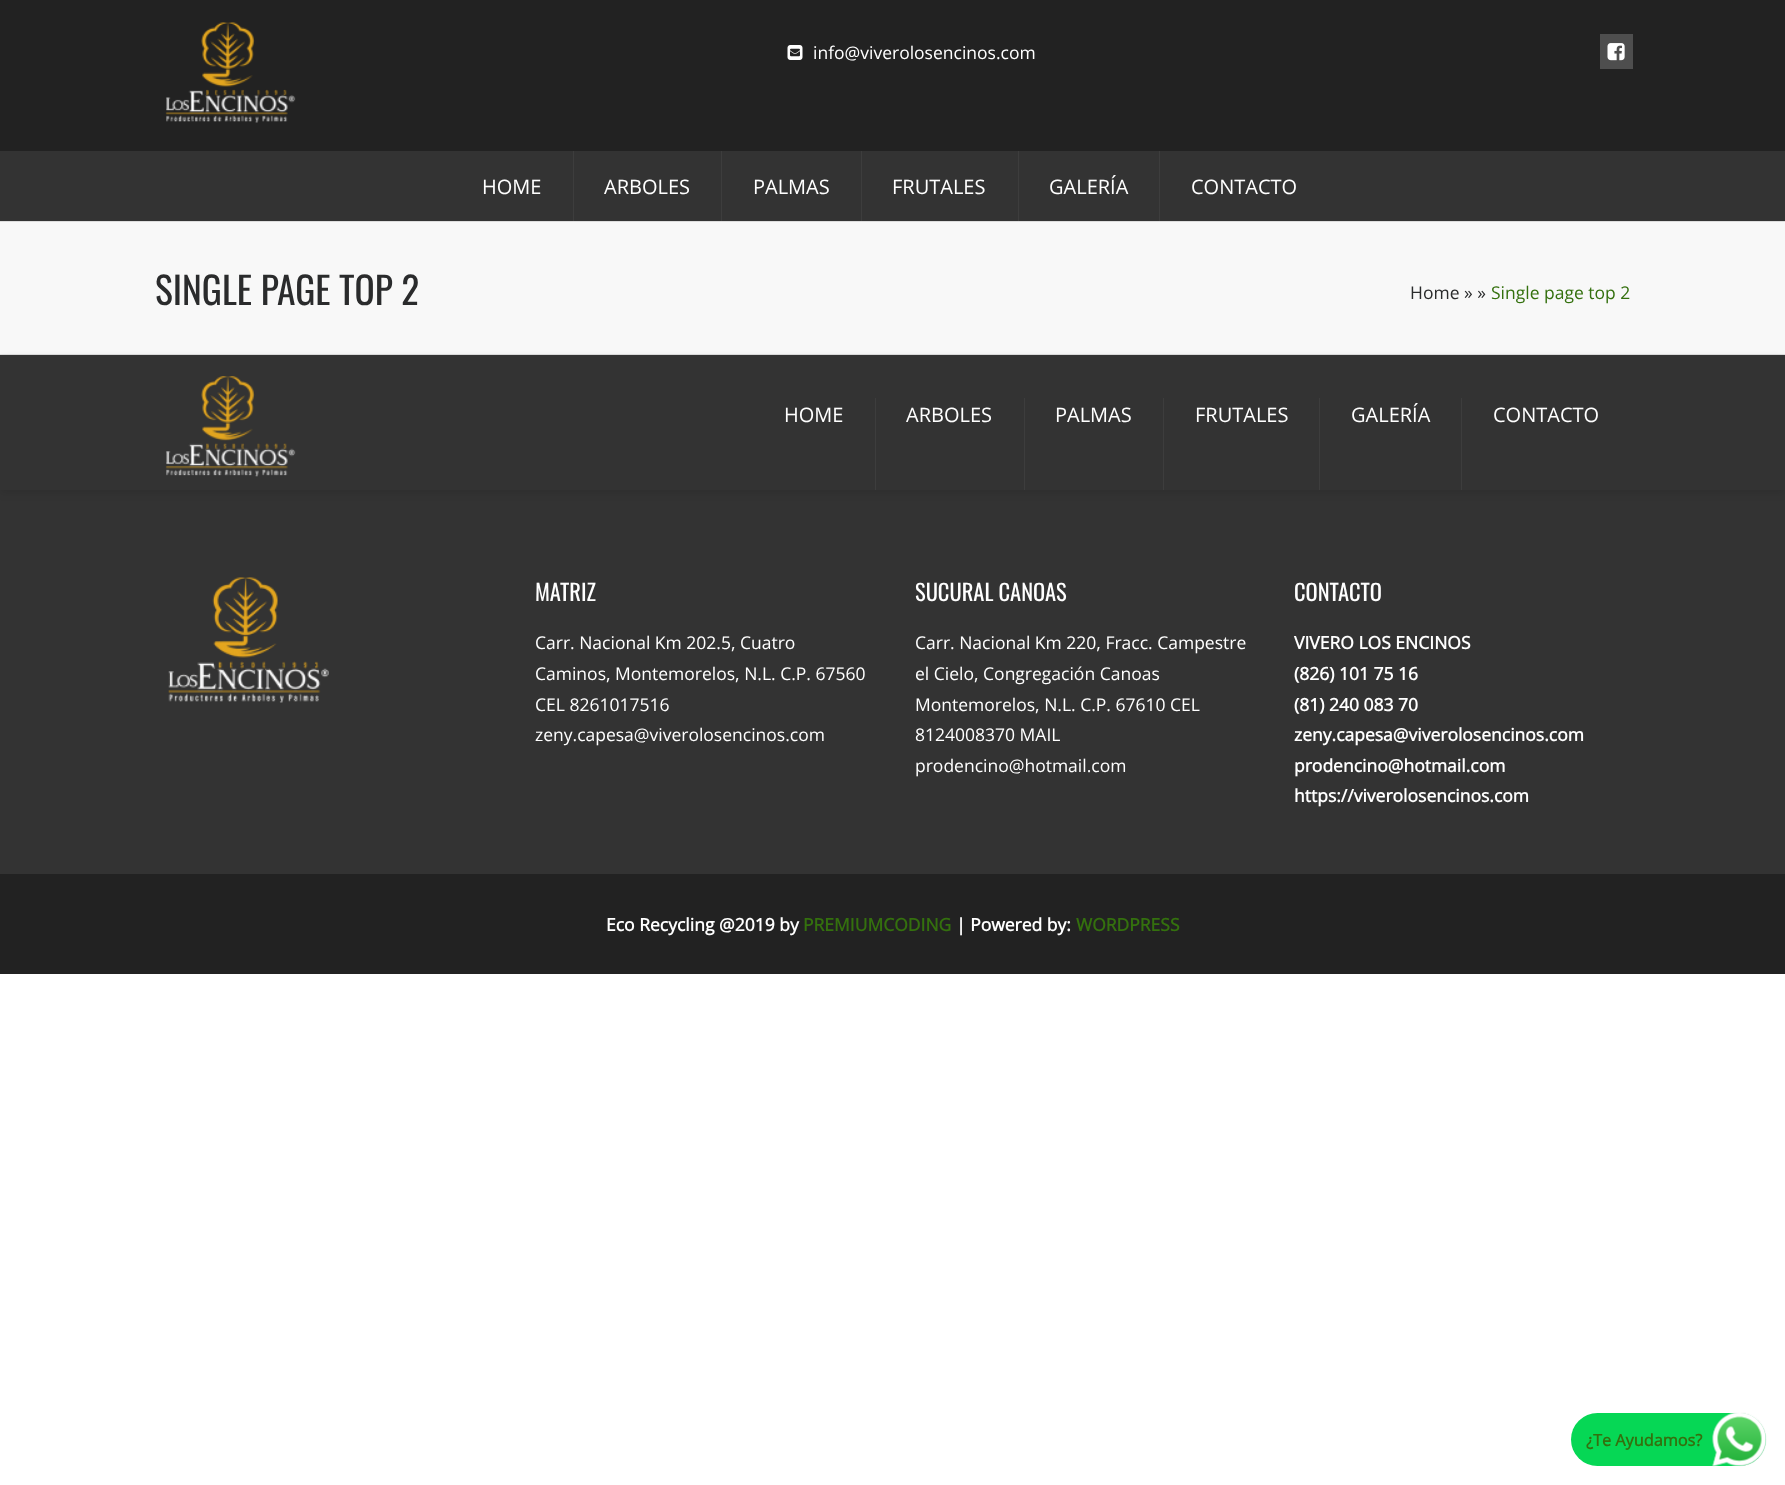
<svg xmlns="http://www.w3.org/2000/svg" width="1785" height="1485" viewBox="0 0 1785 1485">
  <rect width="100%" height="100%" fill="rgb(255,255,255)"/>
  <rect x="0" y="0" width="1785" height="151" fill="rgb(34,34,34)"/>
  <image x="165" y="22" width="131" height="101" href="pic1.png"/>
  <image x="787" y="45" width="16" height="15" href="pic2.png"/>
  <text x="813" y="59" font-family="Open Sans" font-size="17.5" fill="rgb(255,255,255)">info@viverolosencinos.com</text>
  <rect x="1600" y="34" width="33" height="35" fill="rgb(78,78,78)"/>
  <image x="1607" y="43" width="18" height="18" href="pic3.png"/>
  <rect x="0" y="151" width="1785" height="70" fill="rgb(51,51,51)"/>
  <rect x="573" y="151" width="1" height="70" fill="rgb(61,61,61)"/>
  <text x="482" y="194" font-family="Open Sans" font-size="20" fill="rgb(255,255,255)">HOME</text>
  <rect x="721" y="151" width="1" height="70" fill="rgb(61,61,61)"/>
  <text x="604" y="194" font-family="Open Sans" font-size="20" fill="rgb(255,255,255)">ARBOLES</text>
  <rect x="861" y="151" width="1" height="70" fill="rgb(61,61,61)"/>
  <text x="753" y="194" font-family="Open Sans" font-size="20" fill="rgb(255,255,255)">PALMAS</text>
  <rect x="1018" y="151" width="1" height="70" fill="rgb(61,61,61)"/>
  <text x="892" y="194" font-family="Open Sans" font-size="20" fill="rgb(255,255,255)">FRUTALES</text>
  <rect x="1159" y="151" width="1" height="70" fill="rgb(61,61,61)"/>
  <g font-family="Open Sans" font-size="20" fill="rgb(255,255,255)">
    <text x="1049" y="194">GALERÍA</text>
    <text x="1191" y="194">CONTACTO</text>
  </g>
  <rect x="0" y="222" width="1785" height="132" fill="rgb(248,248,248)"/>
  <rect x="0" y="221" width="1785" height="1" fill="rgb(221,221,221)"/>
  <rect x="0" y="354" width="1785" height="1" fill="rgb(221,221,221)"/>
  <text x="155" y="305" font-family="Oswald" font-size="37.5" fill="rgb(42,43,44)">SINGLE PAGE TOP 2</text>
  <text x="1410" y="299" font-family="Open Sans" font-size="17.5" fill="rgb(42,43,44)">Home » »</text>
  <text x="1491" y="299" font-family="Open Sans" font-size="17.5" fill="rgb(52,112,14)">Single page top 2</text>
  <rect x="0" y="490" width="1785" height="384" fill="rgb(51,51,51)"/>
  <rect x="0" y="358" width="1785" height="135" fill="rgba(0,0,0,0.1)" filter="blur(4px)"/>
  <rect x="0" y="355" width="1785" height="135" fill="rgb(51,51,51)"/>
  <image x="165" y="376" width="131" height="101" href="pic4.png"/>
  <rect x="875" y="398" width="1" height="92" fill="rgb(61,61,61)"/>
  <text x="784" y="422" font-family="Open Sans" font-size="20" fill="rgb(255,255,255)">HOME</text>
  <rect x="1024" y="398" width="1" height="92" fill="rgb(61,61,61)"/>
  <text x="906" y="422" font-family="Open Sans" font-size="20" fill="rgb(255,255,255)">ARBOLES</text>
  <rect x="1163" y="398" width="1" height="92" fill="rgb(61,61,61)"/>
  <text x="1055" y="422" font-family="Open Sans" font-size="20" fill="rgb(255,255,255)">PALMAS</text>
  <rect x="1319" y="398" width="1" height="92" fill="rgb(61,61,61)"/>
  <text x="1195" y="422" font-family="Open Sans" font-size="20" fill="rgb(255,255,255)">FRUTALES</text>
  <rect x="1461" y="398" width="1" height="92" fill="rgb(61,61,61)"/>
  <g font-family="Open Sans" font-size="20" fill="rgb(255,255,255)">
    <text x="1351" y="422">GALERÍA</text>
    <text x="1493" y="422">CONTACTO</text>
  </g>
  <image x="168" y="577" width="161" height="126" href="pic5.png"/>
  <text x="535" y="601" font-family="Oswald" font-size="22.5" fill="rgb(255,255,255)">MATRIZ</text>
  <g font-family="Open Sans" font-size="17.5" fill="rgb(255,255,255)">
    <text>
      <tspan x="535" y="649">Carr. Nacional Km 202.5, Cuatro</tspan>
      <tspan x="535" y="680">Caminos, Montemorelos, N.L. C.P. 67560</tspan>
      <tspan x="535" y="711">CEL 8261017516</tspan>
      <tspan x="535" y="741">zeny.capesa@viverolosencinos.com</tspan>
    </text>
  </g>
  <text x="915" y="601" font-family="Oswald" font-size="22.5" fill="rgb(255,255,255)">SUCURAL CANOAS</text>
  <g font-family="Open Sans" font-size="17.5" fill="rgb(255,255,255)">
    <text>
      <tspan x="915" y="649">Carr. Nacional Km 220, Fracc. Campestre</tspan>
      <tspan x="915" y="680">el Cielo, Congregación Canoas</tspan>
      <tspan x="915" y="711">Montemorelos, N.L. C.P. 67610 CEL</tspan>
      <tspan x="915" y="741">8124008370 MAIL</tspan>
      <tspan x="915" y="772">prodencino@hotmail.com</tspan>
    </text>
  </g>
  <text x="1294" y="601" font-family="Oswald" font-size="22.5" fill="rgb(255,255,255)">CONTACTO</text>
  <g font-family="Open Sans" font-size="17.5" font-weight="bold" fill="rgb(255,255,255)">
    <text>
      <tspan x="1294" y="649">VIVERO LOS ENCINOS</tspan>
      <tspan x="1294" y="680">(826) 101 75 16</tspan>
      <tspan x="1294" y="711">(81) 240 083 70</tspan>
      <tspan x="1294" y="741">zeny.capesa@viverolosencinos.com</tspan>
      <tspan x="1294" y="772">prodencino@hotmail.com</tspan>
      <tspan x="1294" y="802">https://viverolosencinos.com</tspan>
    </text>
  </g>
  <rect x="0" y="874" width="1785" height="100" fill="rgb(34,34,34)"/>
  <text x="606" y="931" font-family="Open Sans" font-size="17.5" font-weight="bold" fill="rgb(255,255,255)">Eco Recycling @2019 by</text>
  <text x="803" y="931" font-family="Open Sans" font-size="17.5" font-weight="bold" fill="rgb(52,112,14)">PREMIUMCODING</text>
  <text x="956" y="931" font-family="Open Sans" font-size="17.5" font-weight="bold" fill="rgb(255,255,255)">| Powered by:</text>
  <text x="1076" y="931" font-family="Open Sans" font-size="17.5" font-weight="bold" fill="rgb(52,112,14)">WORDPRESS</text>
  <rect x="1571" y="1413" width="195" height="53" rx="26.5" fill="rgb(6,215,85)"/>
  <text x="1586" y="1446" font-family="Open Sans" font-size="16.25" font-weight="bold" fill="rgb(52,112,14)">¿Te Ayudamos?</text>
  <image x="1712" y="1412" width="55" height="55" href="pic6.png"/>
</svg>
